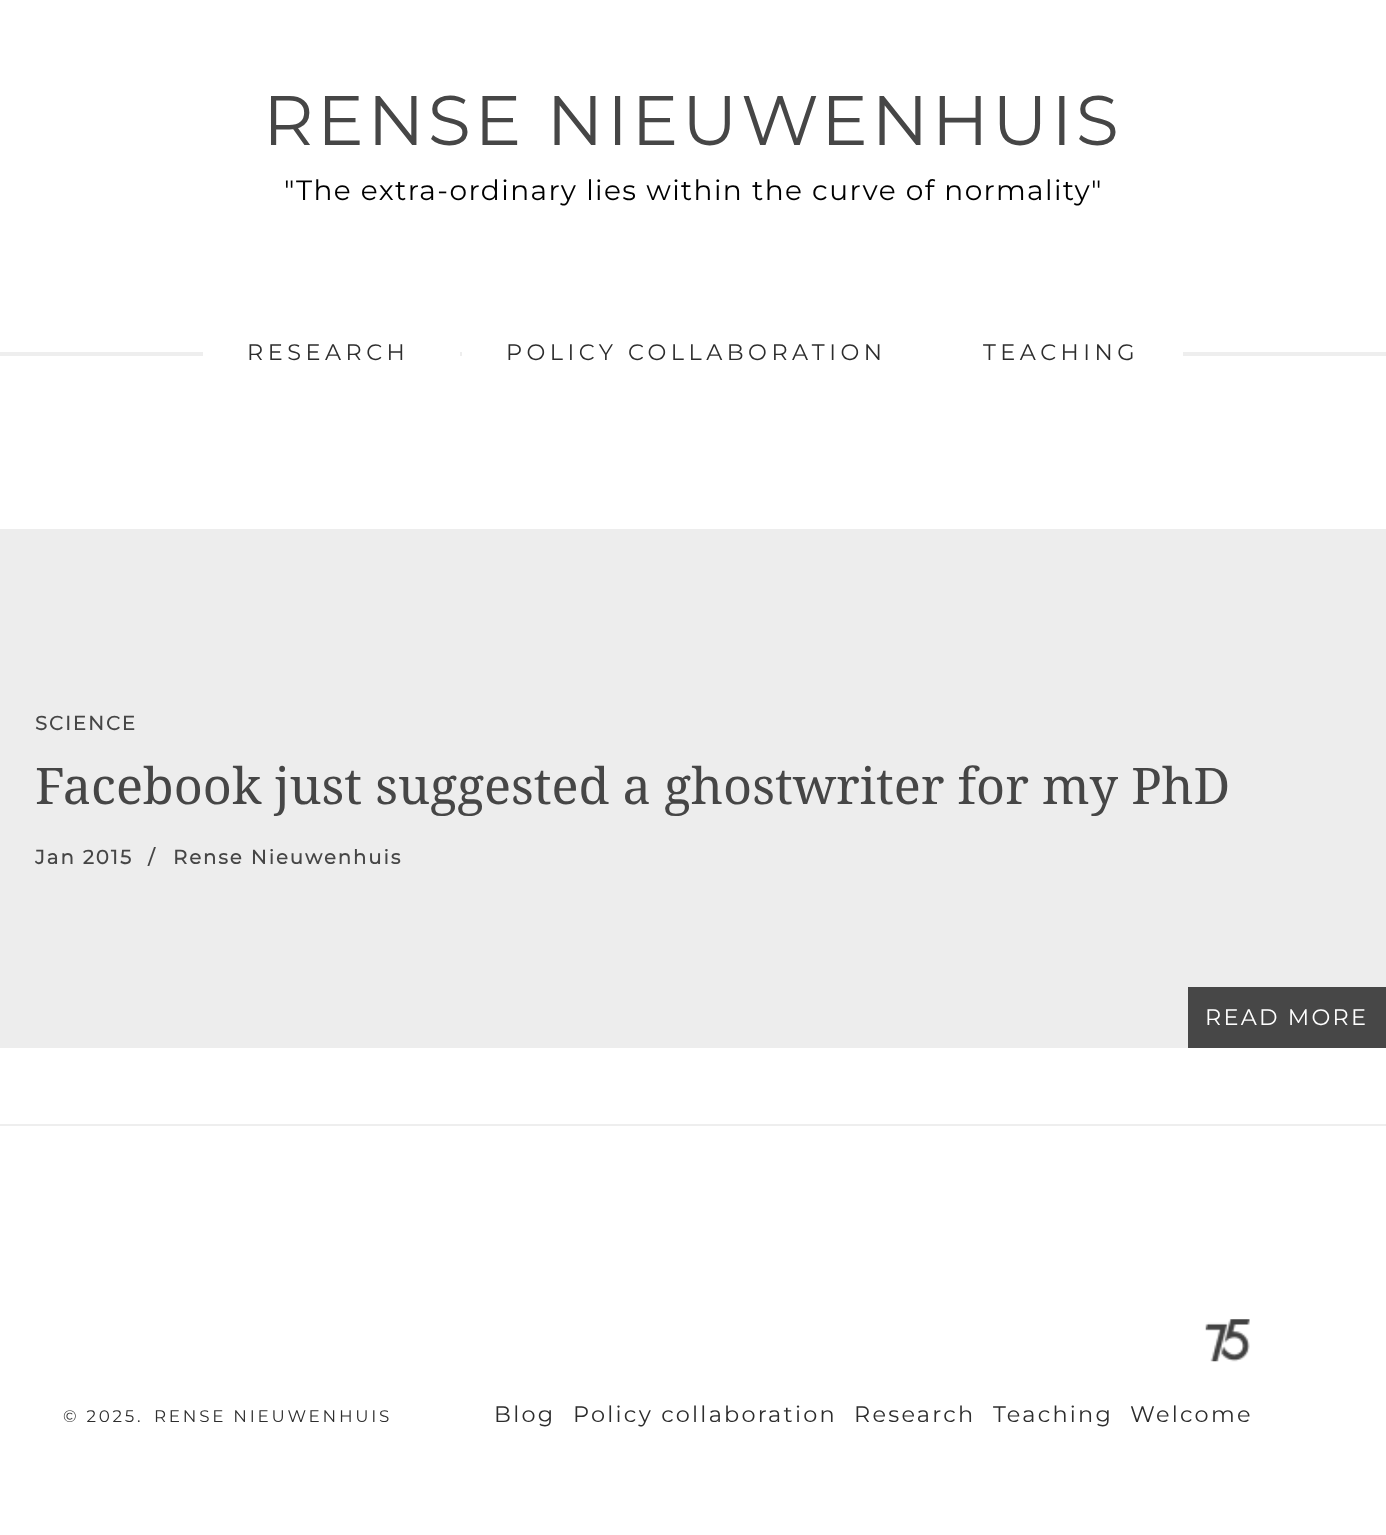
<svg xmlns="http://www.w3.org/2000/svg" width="1386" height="1535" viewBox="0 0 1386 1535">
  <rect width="100%" height="100%" fill="rgb(255,255,255)"/>
  <text x="263" y="145" font-family="Montserrat" font-size="70" font-weight="100" letter-spacing="3.5" fill="rgb(70,70,70)">RENSE NIEUWENHUIS</text>
  <text x="284" y="200" font-family="Montserrat" font-size="28" font-weight="100" letter-spacing="1.4" fill="rgb(0,0,0)">"The extra-ordinary lies within the curve of normality"</text>
  <rect x="0" y="352" width="1386" height="4" fill="rgb(238,238,238)"/>
  <rect x="203" y="352" width="257" height="4" fill="rgb(255,255,255)"/>
  <text x="247" y="360" font-family="Montserrat" font-size="22.4" font-weight="100" letter-spacing="4.5" fill="rgb(45,45,45)">RESEARCH</text>
  <rect x="462" y="352" width="721" height="4" fill="rgb(255,255,255)"/>
  <g font-family="Montserrat" font-size="22.4" font-weight="100" letter-spacing="4.5" fill="rgb(45,45,45)">
    <text x="506" y="360">POLICY COLLABORATION</text>
    <text x="983" y="360">TEACHING</text>
  </g>
  <rect x="0" y="529" width="1386" height="519" fill="rgb(237,237,237)"/>
  <text x="35" y="730" font-family="Montserrat" font-size="19.6" font-weight="bold" letter-spacing="2" fill="rgb(70,70,70)">SCIENCE</text>
  <text x="35" y="804" font-family="Droid Serif" font-size="50.4" fill="rgb(70,70,70)">Facebook just suggested a ghostwriter for my PhD</text>
  <g font-family="Montserrat" font-size="19.6" font-weight="bold" letter-spacing="2" fill="rgb(70,70,70)">
    <text x="35" y="864">Jan 2015</text>
    <text x="148" y="864">/</text>
    <text x="173" y="864">Rense Nieuwenhuis</text>
  </g>
  <rect x="1188" y="987" width="198" height="61" fill="rgb(71,71,71)"/>
  <text x="1205" y="1025" font-family="Montserrat" font-size="22.4" font-weight="100" letter-spacing="2.25" fill="rgb(255,255,255)">READ MORE</text>
  <rect x="0" y="1124" width="1386" height="2" fill="rgb(238,238,238)"/>
  <image x="1205" y="1319" width="45" height="43" href="pic1.png"/>
  <g font-family="Montserrat" font-size="16.75" font-weight="100" letter-spacing="2.75" fill="rgb(45,45,45)">
    <text x="63" y="1422">© 2025.</text>
    <text x="154" y="1422">RENSE NIEUWENHUIS</text>
  </g>
  <g font-family="Montserrat" font-size="22.4" font-weight="100" letter-spacing="2.25" fill="rgb(45,45,45)">
    <text x="494" y="1422">Blog</text>
    <text x="573" y="1422">Policy collaboration</text>
    <text x="854" y="1422">Research</text>
    <text x="993" y="1422">Teaching</text>
    <text x="1130" y="1422">Welcome</text>
  </g>
</svg>
